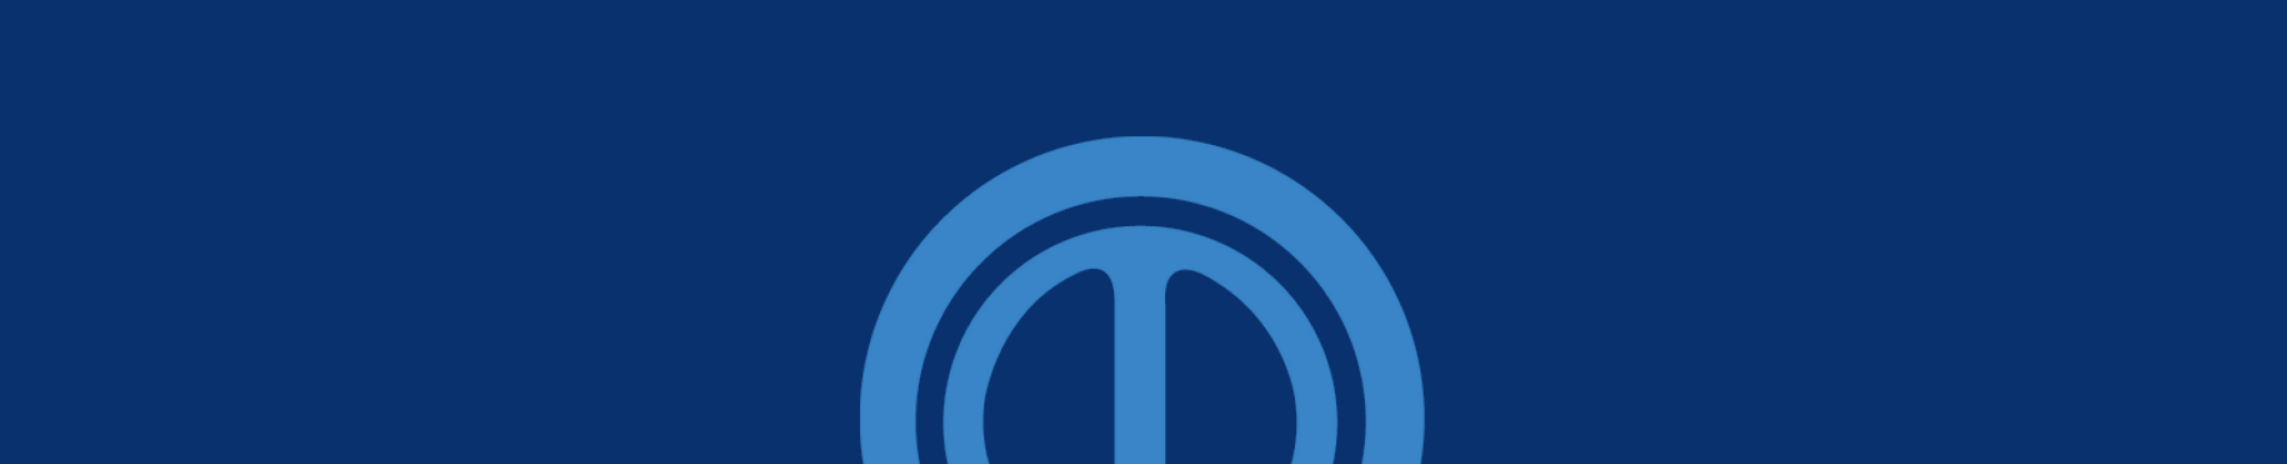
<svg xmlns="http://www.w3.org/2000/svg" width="2287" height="464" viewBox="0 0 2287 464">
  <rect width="100%" height="100%" fill="rgb(9,49,109)"/>
  <image x="859" y="136" width="567" height="328" href="pic1.png"/>
</svg>
